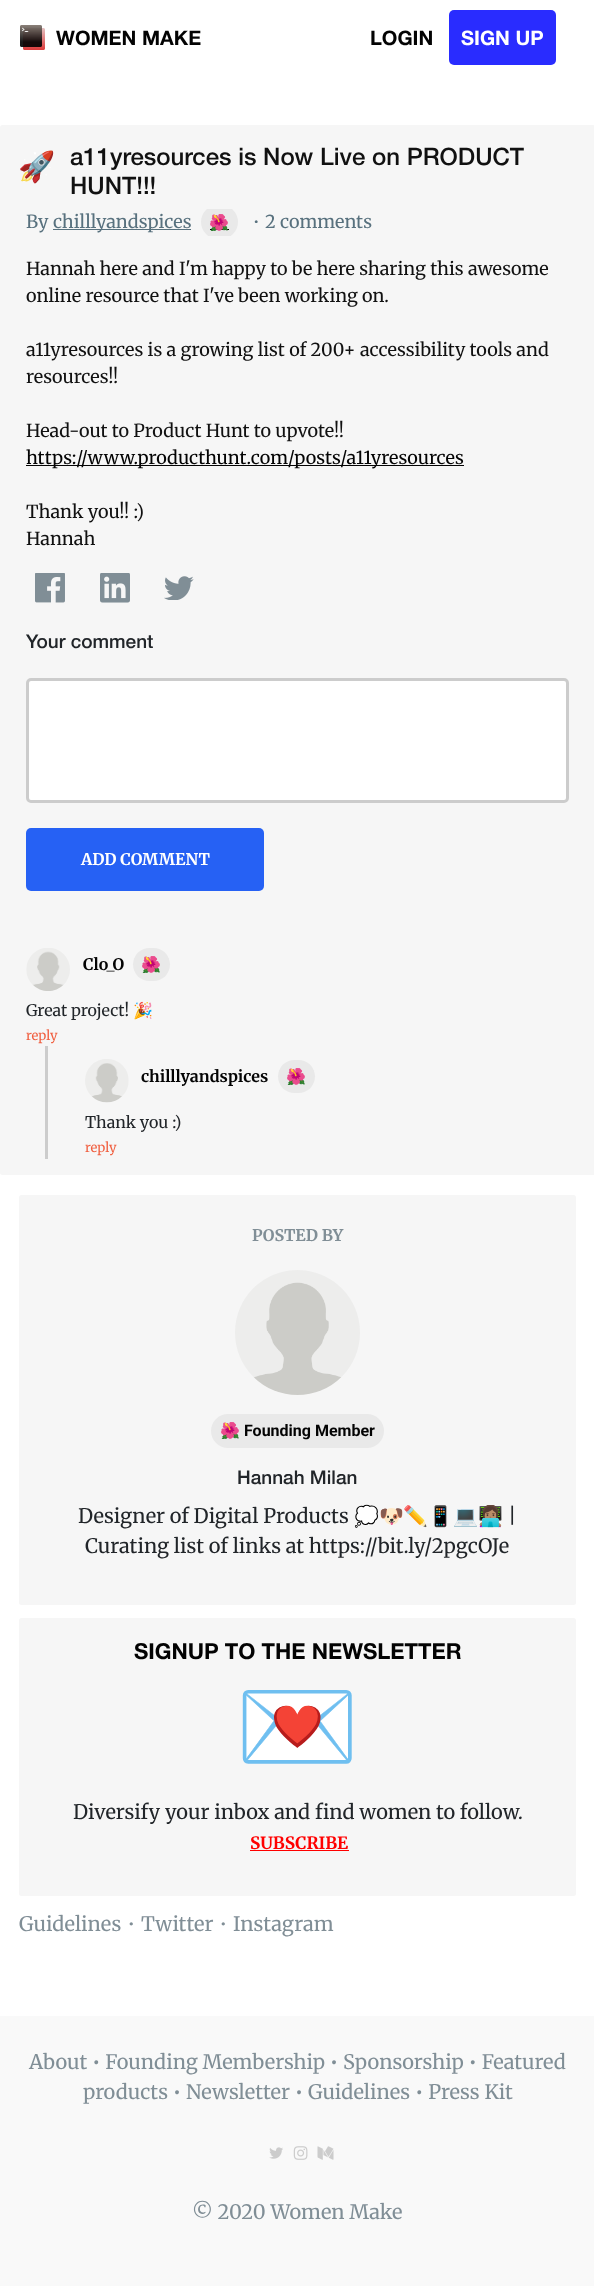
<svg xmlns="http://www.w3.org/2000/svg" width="594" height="2286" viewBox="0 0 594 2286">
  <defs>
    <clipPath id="clip1"><rect x="26" y="209" width="543" height="27"/></clipPath>
    <clipPath id="clip2"><rect x="44" y="1676" width="507" height="100"/></clipPath>
  </defs>
  <rect width="100%" height="100%" fill="rgb(255,255,255)"/>
  <image x="20" y="25" width="25" height="25" href="pic1.png"/>
  <g font-family="Helvetica Neue" font-size="20" font-weight="bold" fill="rgb(3,3,3)">
    <text x="56" y="45">WOMEN MAKE</text>
    <text x="370" y="45">LOGIN</text>
  </g>
  <rect x="449" y="10" width="107" height="55" rx="5" fill="rgb(41,44,255)"/>
  <text x="461" y="45" font-family="Helvetica Neue" font-size="20" font-weight="bold" fill="rgb(255,255,255)">SIGN UP</text>
  <rect x="0" y="125" width="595" height="1050" rx="2.5" fill="rgb(246,246,246)"/>
  <text x="18" y="177" font-family="Noto Color Emoji" font-size="30" fill="rgb(240,95,64)">🚀</text>
  <g font-family="Helvetica Neue" font-size="24" font-weight="500" fill="rgb(17,17,17)">
    <text>
      <tspan x="70" y="165">a11yresources is Now Live on PRODUCT</tspan>
      <tspan x="70" y="194">HUNT!!!</tspan>
    </text>
  </g>
  <text x="26" y="228" font-family="Merriweather" font-size="18" fill="rgb(88,113,126)">By</text>
  <rect x="53" y="229" width="138" height="1" fill="rgb(88,113,126)"/>
  <text x="53" y="228" font-family="Merriweather" font-size="18" fill="rgb(88,113,126)">chilllyandspices</text>
  <g clip-path="url(#clip1)">
    <rect x="201" y="205" width="37" height="34" rx="17" fill="rgb(233,233,233)"/>
  </g>
  <rect x="210" y="229" width="19" height="1" fill="rgb(3,3,3)"/>
  <text x="209" y="228" font-family="Noto Color Emoji" font-size="16" font-weight="bold" fill="rgb(3,3,3)">🌺</text>
  <text x="247" y="228" font-family="WenQuanYi Zen Hei" font-size="18" font-weight="500" fill="rgb(88,113,126)">・</text>
  <text x="265" y="228" font-family="Merriweather" font-size="18" fill="rgb(88,113,126)">2 comments</text>
  <g font-family="Merriweather" font-size="18" fill="rgb(17,17,17)">
    <text>
      <tspan x="26" y="275">Hannah here and I'm happy to be here sharing this awesome</tspan>
      <tspan x="26" y="302">online resource that I've been working on.</tspan>
    </text>
    <text>
      <tspan x="26" y="356">a11yresources is a growing list of 200+ accessibility tools and</tspan>
      <tspan x="26" y="383">resources!!</tspan>
    </text>
    <text x="26" y="437">Head-out to Product Hunt to upvote!!</text>
  </g>
  <rect x="26" y="465" width="438" height="1" fill="rgb(3,3,3)"/>
  <text x="26" y="464" font-family="Merriweather" font-size="18" fill="rgb(3,3,3)">https://www.producthunt.com/posts/a11yresources</text>
  <g font-family="Merriweather" font-size="18" fill="rgb(17,17,17)">
    <text>
      <tspan x="26" y="518">Thank you!! :)</tspan>
      <tspan x="26" y="545">Hannah</tspan>
    </text>
  </g>
  <image x="35" y="573" width="30" height="30" href="pic2.png"/>
  <image x="100" y="573" width="30" height="30" href="pic3.png"/>
  <image x="164" y="576" width="30" height="24" href="pic4.png"/>
  <text x="26" y="648" font-family="Helvetica Neue" font-size="19" font-weight="500" fill="rgb(33,37,41)">Your comment</text>
  <rect x="27.5" y="679.5" width="540" height="122" rx="3.5" fill="rgb(255,255,255)" stroke="rgb(204,204,204)" stroke-width="3"/>
  <rect x="26" y="828" width="238" height="63" rx="5" fill="rgb(38,97,244)"/>
  <text x="81" y="865" font-family="Merriweather" font-size="16" font-weight="bold" fill="rgb(255,255,255)">ADD COMMENT</text>
  <image x="26" y="948" width="44" height="43" href="pic5.png"/>
  <text x="83" y="970" font-family="Merriweather" font-size="16" font-weight="bold" fill="rgb(3,3,3)">Clo_O</text>
  <rect x="133" y="948" width="37" height="33" rx="16.5" fill="rgb(233,233,233)"/>
  <text x="141" y="970" font-family="Noto Color Emoji" font-size="16" font-weight="bold" fill="rgb(3,3,3)">🌺</text>
  <text x="26" y="1016" font-family="Merriweather" font-size="16" fill="rgb(33,37,41)">Great project!</text>
  <text x="133" y="1016" font-family="Noto Color Emoji" font-size="16" fill="rgb(33,37,41)">🎉</text>
  <text x="26" y="1040" font-family="Merriweather" font-size="13" fill="rgb(240,95,64)">reply</text>
  <rect x="45" y="1046" width="3" height="113" fill="rgb(204,204,204)"/>
  <image x="85" y="1059" width="44" height="44" href="pic6.png"/>
  <text x="141" y="1082" font-family="Merriweather" font-size="16" font-weight="bold" fill="rgb(3,3,3)">chilllyandspices</text>
  <rect x="278" y="1060" width="37" height="33" rx="16.5" fill="rgb(233,233,233)"/>
  <text x="286" y="1082" font-family="Noto Color Emoji" font-size="16" font-weight="bold" fill="rgb(3,3,3)">🌺</text>
  <text x="85" y="1128" font-family="Merriweather" font-size="16" fill="rgb(33,37,41)">Thank you :)</text>
  <text x="85" y="1152" font-family="Merriweather" font-size="13" fill="rgb(240,95,64)">reply</text>
  <rect x="19" y="1195" width="557" height="410" rx="2.5" fill="rgb(246,246,246)"/>
  <text x="252" y="1241" font-family="Merriweather" font-size="16" font-weight="bold" fill="rgb(128,142,150)">POSTED BY</text>
  <image x="235" y="1270" width="125" height="125" href="pic7.png"/>
  <rect x="211" y="1414" width="173" height="34" rx="17" fill="rgb(233,233,233)"/>
  <text x="220" y="1436" font-family="Noto Color Emoji" font-size="16" font-weight="bold" fill="rgb(3,3,3)">🌺</text>
  <text x="244" y="1436" font-family="Roboto" font-size="16" font-weight="bold" fill="rgb(3,3,3)">Founding Member</text>
  <text x="237" y="1484" font-family="Helvetica Neue" font-size="19" font-weight="500" fill="rgb(33,37,41)">Hannah Milan</text>
  <text x="78" y="1523" font-family="Merriweather" font-size="20" fill="rgb(33,37,41)">Designer of Digital Products</text>
  <text x="354" y="1523" font-family="Noto Color Emoji" font-size="20" fill="rgb(33,37,41)">💭🐶✏️📱💻👩🏽‍💻</text>
  <g font-family="Merriweather" font-size="20" fill="rgb(33,37,41)">
    <text x="508" y="1523">|</text>
    <text x="85" y="1553">Curating list of links at https://bit.ly/2pgcOJe</text>
  </g>
  <rect x="19" y="1618" width="557" height="278" rx="2.5" fill="rgb(246,246,246)"/>
  <text x="134" y="1659" font-family="Helvetica Neue" font-size="22" font-weight="bold" fill="rgb(3,3,3)">SIGNUP TO THE NEWSLETTER</text>
  <g clip-path="url(#clip2)">
    <text x="235" y="1761" font-family="Noto Color Emoji" font-size="100" fill="rgb(51,51,51)">💌</text>
  </g>
  <text x="73" y="1819" font-family="Merriweather" font-size="20" fill="rgb(33,37,41)">Diversify your inbox and find women to follow.</text>
  <text x="250" y="1849" font-family="Merriweather" font-size="17" font-weight="bold" fill="rgb(255,0,0)">SUBSCRIBE</text>
  <rect x="250" y="1850" width="99" height="1" fill="rgb(255,0,0)"/>
  <text x="19" y="1931" font-family="Merriweather" font-size="20" fill="rgb(128,142,150)">Guidelines</text>
  <text x="121" y="1931" font-family="WenQuanYi Zen Hei" font-size="20" font-weight="500" fill="rgb(128,142,150)">・</text>
  <text x="141" y="1931" font-family="Merriweather" font-size="20" fill="rgb(128,142,150)">Twitter</text>
  <text x="213" y="1931" font-family="WenQuanYi Zen Hei" font-size="20" font-weight="500" fill="rgb(128,142,150)">・</text>
  <text x="233" y="1931" font-family="Merriweather" font-size="20" fill="rgb(128,142,150)">Instagram</text>
  <rect x="0" y="2016" width="594" height="270" fill="rgb(249,249,249)"/>
  <g font-family="Merriweather" font-size="20" fill="rgb(128,142,150)">
    <text x="29" y="2069">About • Founding Membership • Sponsorship • Featured</text>
    <text x="83" y="2099">products • Newsletter • Guidelines • Press Kit</text>
  </g>
  <image x="269" y="2147" width="14" height="12" href="pic8.png"/>
  <image x="293" y="2146" width="15" height="14" href="pic9.png"/>
  <image x="317" y="2146" width="17" height="14" href="pic10.png"/>
  <text x="192" y="2219" font-family="Merriweather" font-size="20" fill="rgb(128,142,150)">© 2020 Women Make</text>
</svg>
